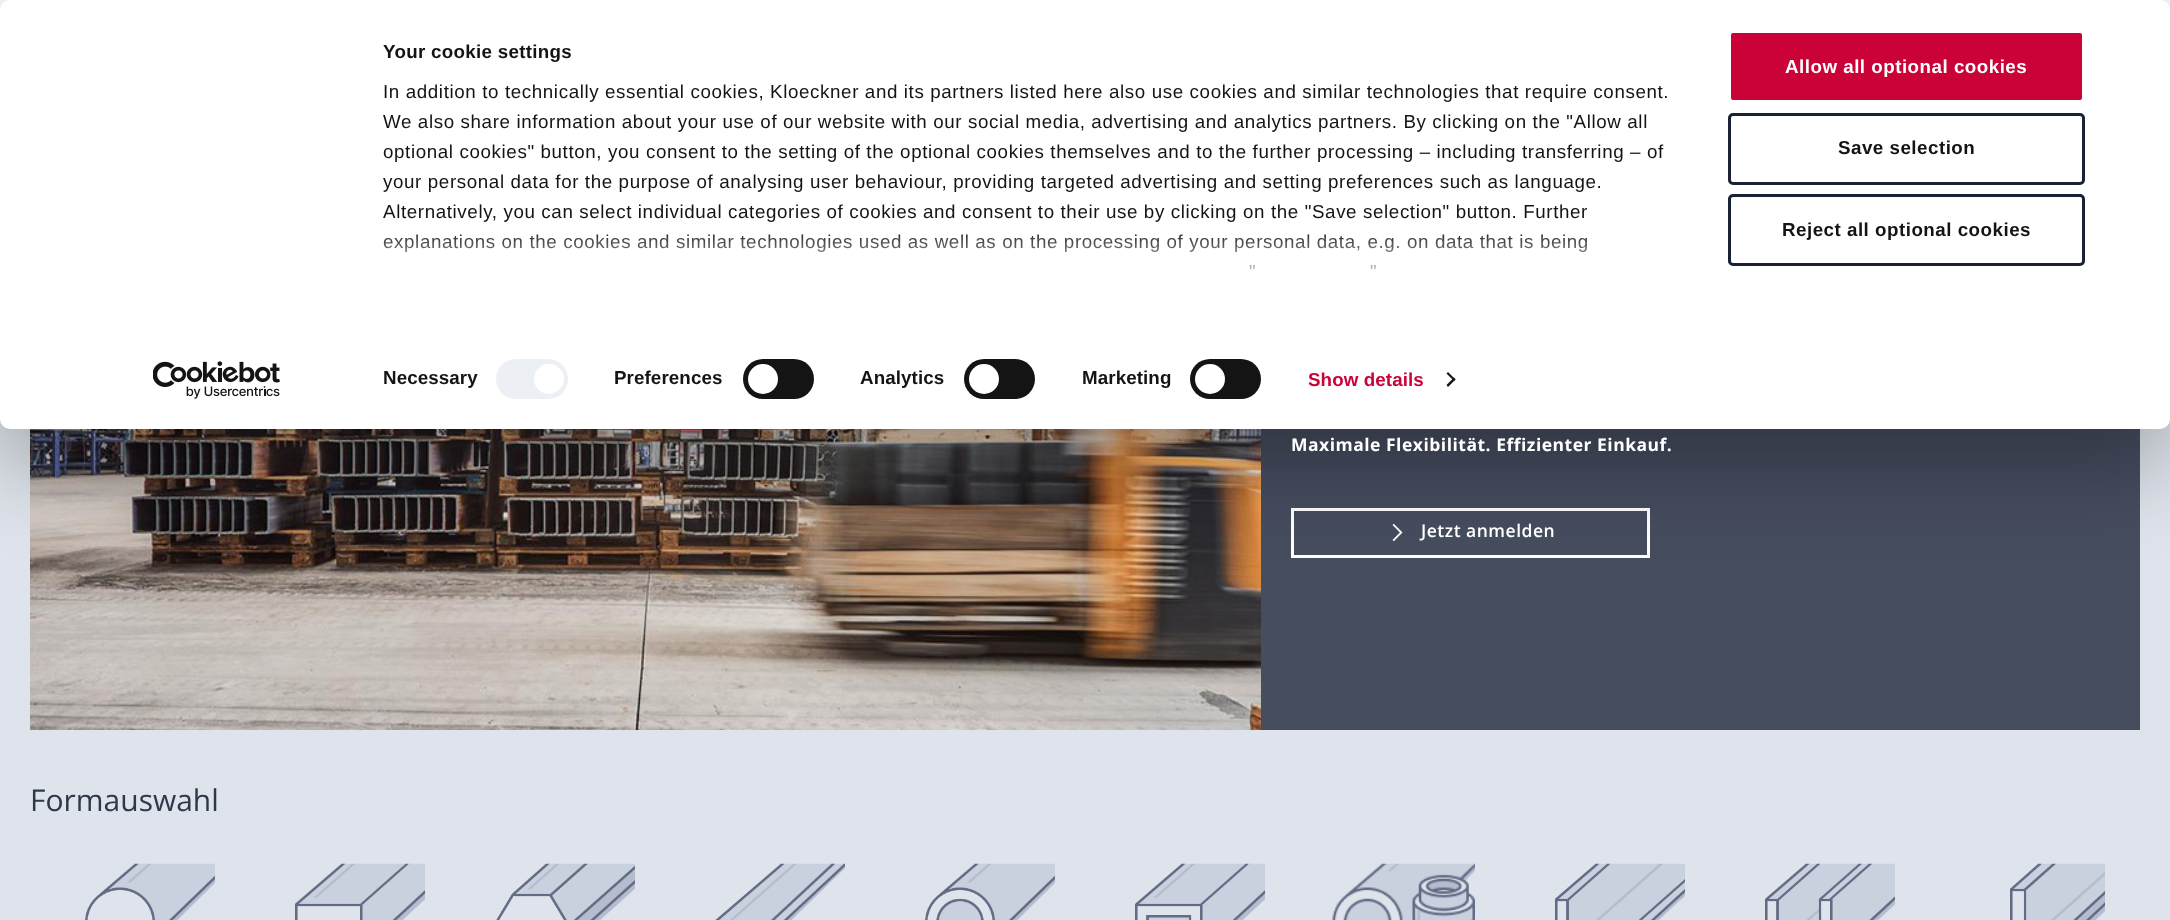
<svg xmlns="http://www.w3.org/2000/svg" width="2170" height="920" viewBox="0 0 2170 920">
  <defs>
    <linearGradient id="g1" gradientUnits="userSpaceOnUse" x1="1025" y1="321" x2="1025" y2="228"><stop offset="0" stop-color="rgb(255,255,255)"/><stop offset="0.5" stop-color="rgb(255,255,255)" stop-opacity="0.8"/><stop offset="1" stop-color="rgb(255,255,255)" stop-opacity="0"/></linearGradient>
  </defs>
  <rect width="100%" height="100%" fill="rgb(246,247,250)"/>
  <rect x="0" y="419" width="2170" height="501" fill="rgb(223,228,236)"/>
  <image x="30" y="429" width="1231" height="301" href="pic2.png"/>
  <rect x="1261" y="429" width="879" height="301" fill="rgb(70,77,95)"/>
  <rect x="1292.5" y="509.5" width="356" height="47" fill="none" stroke="rgb(255,255,255)" stroke-width="3"/>
  <image x="1392" y="523" width="11" height="19" href="pic3.png"/>
  <rect x="0" y="38" width="2170" height="428" rx="10" fill="rgba(0,0,0,0.3)" filter="blur(44px)"/>
  <rect x="0" y="0" width="2170" height="429" rx="10" fill="rgb(255,255,255)"/>
  <text x="383" y="58" font-family="Liberation Sans" font-size="18.75" font-weight="bold" letter-spacing="0.3" fill="rgb(20,20,20)">Your cookie settings</text>
  <g font-family="Liberation Sans" font-size="18.75" letter-spacing="0.62" fill="rgb(20,20,20)">
    <text>
      <tspan x="383" y="98">In addition to technically essential cookies, Kloeckner and its partners listed here also use cookies and similar technologies that require consent.</tspan>
      <tspan x="383" y="128">We also share information about your use of our website with our social media, advertising and analytics partners. By clicking on the "Allow all</tspan>
      <tspan x="383" y="158">optional cookies" button, you consent to the setting of the optional cookies themselves and to the further processing – including transferring – of</tspan>
      <tspan x="383" y="188">your personal data for the purpose of analysing user behaviour, providing targeted advertising and setting preferences such as language.</tspan>
      <tspan x="383" y="218">Alternatively, you can select individual categories of cookies and consent to their use by clicking on the "Save selection" button. Further</tspan>
      <tspan x="383" y="248">explanations on the cookies and similar technologies used as well as on the processing of your personal data, e.g. on data that is being</tspan>
    </text>
    <text x="1249" y="278">"</text>
    <text x="1370" y="278">"</text>
  </g>
  <rect x="383" y="234" width="1205" height="36" fill="url(#g1)"/>
  <text x="383" y="384" font-family="Liberation Sans" font-size="18.75" font-weight="bold" letter-spacing="0.1" fill="rgb(20,20,20)">Necessary</text>
  <rect x="496" y="359" width="72" height="40" rx="20" fill="rgb(236,239,244)"/>
  <circle cx="549" cy="379" r="15" fill="rgb(255,255,255)"/>
  <text x="614" y="384" font-family="Liberation Sans" font-size="18.75" font-weight="bold" letter-spacing="0.1" fill="rgb(20,20,20)">Preferences</text>
  <rect x="743" y="359" width="71" height="40" rx="20" fill="rgb(20,20,20)"/>
  <circle cx="763" cy="379" r="15" fill="rgb(255,255,255)"/>
  <text x="860" y="384" font-family="Liberation Sans" font-size="18.75" font-weight="bold" letter-spacing="0.1" fill="rgb(20,20,20)">Analytics</text>
  <rect x="964" y="359" width="71" height="40" rx="20" fill="rgb(20,20,20)"/>
  <circle cx="984" cy="379" r="15" fill="rgb(255,255,255)"/>
  <text x="1082" y="384" font-family="Liberation Sans" font-size="18.75" font-weight="bold" letter-spacing="0.1" fill="rgb(20,20,20)">Marketing</text>
  <rect x="1190" y="359" width="71" height="40" rx="20" fill="rgb(20,20,20)"/>
  <circle cx="1210" cy="379" r="15" fill="rgb(255,255,255)"/>
  <text x="1308" y="386" font-family="Liberation Sans" font-size="18.75" font-weight="bold" letter-spacing="0.1" fill="rgb(202,2,55)">Show details</text>
  <path d="M1448 372L1455.5 379.5L1454 381L1446.5 373.5Z" fill="rgb(20,20,20)"/>
  <path d="M1454 377.5L1455.5 379.5L1448 387L1446.5 385Z" fill="rgb(20,20,20)"/>
  <rect x="1729.5" y="31.5" width="354" height="70" rx="3.5" fill="rgb(202,2,55)" stroke="rgb(255,255,255)" stroke-width="3"/>
  <text x="1785" y="73" font-family="Liberation Sans" font-size="18.75" font-weight="bold" letter-spacing="0.5" fill="rgb(255,255,255)">Allow all optional cookies</text>
  <rect x="1729.5" y="114.5" width="354" height="69" rx="3.5" fill="none" stroke="rgb(25,33,52)" stroke-width="3"/>
  <text x="1838" y="154" font-family="Liberation Sans" font-size="18.75" font-weight="bold" letter-spacing="0.5" fill="rgb(20,20,20)">Save selection</text>
  <rect x="1729.5" y="195.5" width="354" height="69" rx="3.5" fill="none" stroke="rgb(25,33,52)" stroke-width="3"/>
  <text x="1782" y="236" font-family="Liberation Sans" font-size="18.75" font-weight="bold" letter-spacing="0.5" fill="rgb(20,20,20)">Reject all optional cookies</text>
  <image x="153" y="361" width="127" height="38" href="pic1.png"/>
  <text x="1291" y="451" font-family="Open Sans" font-size="17.5" font-weight="bold" letter-spacing="0.5" fill="rgb(255,255,255)">Maximale Flexibilität. Effizienter Einkauf.</text>
  <text x="1421" y="537" font-family="Open Sans" font-size="17.5" font-weight="600" letter-spacing="0.5" fill="rgb(255,255,255)">Jetzt anmelden</text>
  <text x="30" y="811" font-family="Open Sans" font-size="30" fill="rgb(47,56,73)">Formauswahl</text>
  <image x="85" y="863" width="130" height="57" href="pic4.png"/>
  <image x="295" y="863" width="130" height="57" href="pic5.png"/>
  <image x="496" y="863" width="139" height="57" href="pic6.png"/>
  <image x="715" y="863" width="130" height="57" href="pic7.png"/>
  <image x="925" y="863" width="130" height="57" href="pic8.png"/>
  <image x="1135" y="863" width="130" height="57" href="pic9.png"/>
  <image x="1332" y="863" width="143" height="57" href="pic10.png"/>
  <image x="1555" y="863" width="130" height="57" href="pic11.png"/>
  <image x="1765" y="863" width="130" height="57" href="pic12.png"/>
  <image x="2009" y="863" width="96" height="57" href="pic13.png"/>
</svg>
